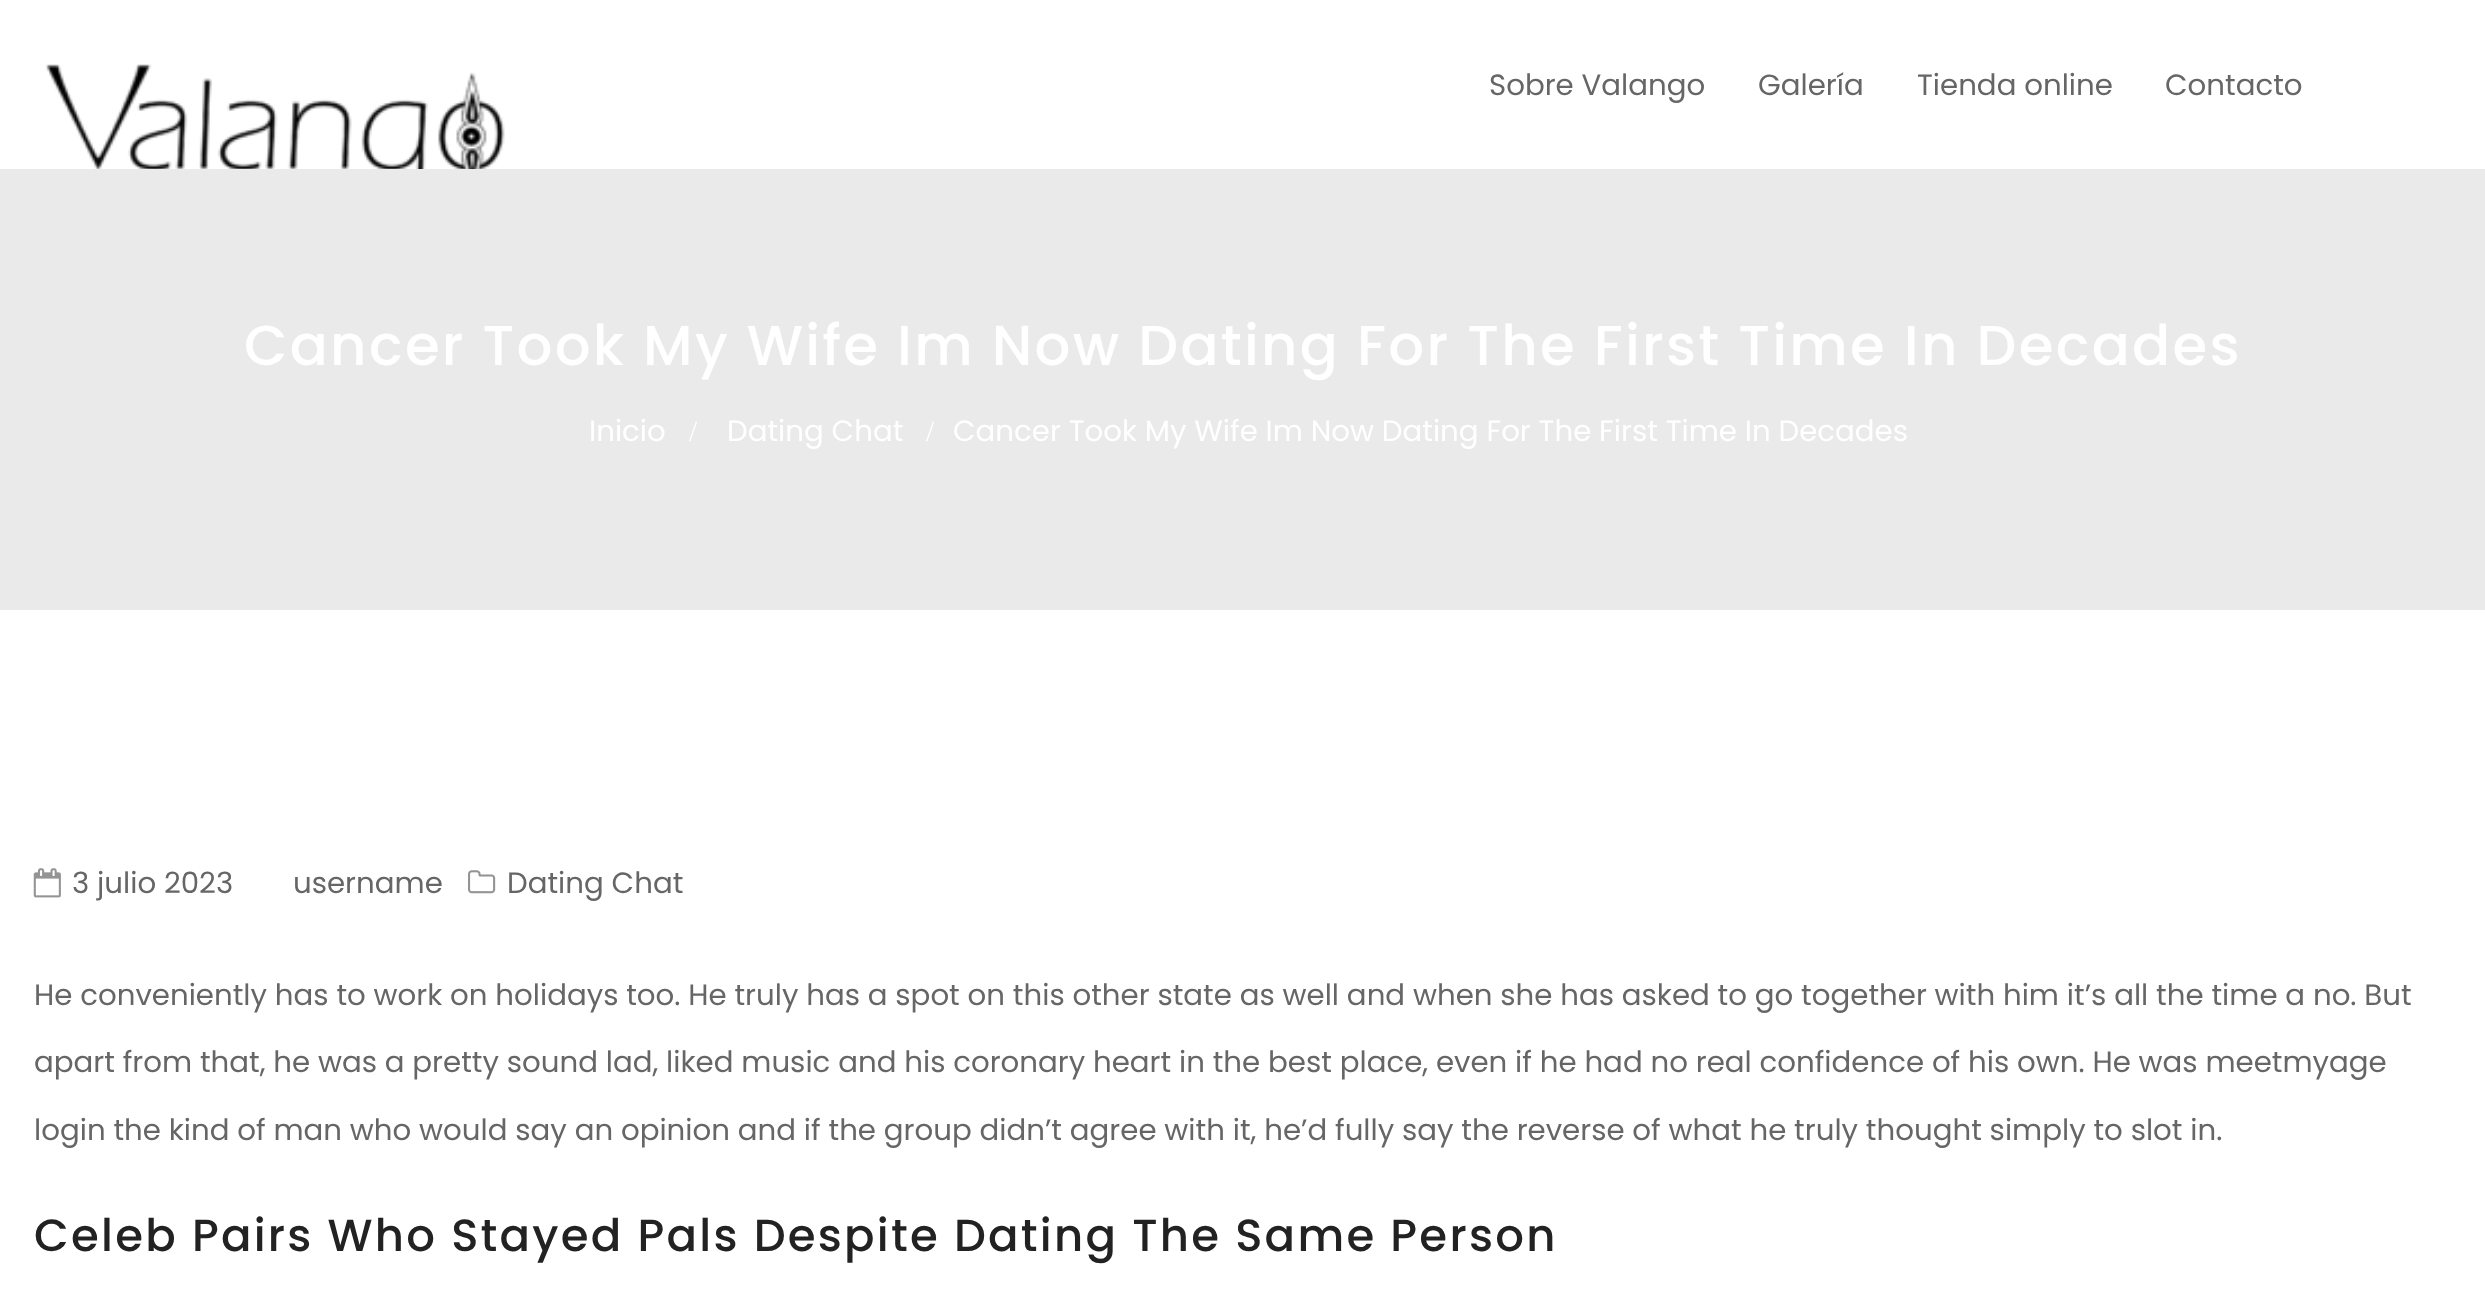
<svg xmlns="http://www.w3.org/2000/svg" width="2485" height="1289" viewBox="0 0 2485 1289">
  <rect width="100%" height="100%" fill="rgb(255,255,255)"/>
  <image x="45" y="64" width="460" height="105" href="pic1.png"/>
  <g font-family="Poppins" font-size="29.25" fill="rgb(102,102,102)">
    <text x="1489" y="95">Sobre Valango</text>
    <text x="1758" y="95">Galería</text>
    <text x="1917" y="95">Tienda online</text>
    <text x="2165" y="95">Contacto</text>
  </g>
  <rect x="0" y="169" width="2485" height="441" fill="rgb(234,234,234)"/>
  <text x="244" y="365" font-family="Poppins" font-size="56.25" font-weight="500" letter-spacing="2.25" fill="rgb(255,255,255)">Cancer Took My Wife Im Now Dating For The First Time In Decades</text>
  <text x="589" y="441" font-family="Poppins" font-size="29.25" fill="rgb(255,255,255)">Inicio</text>
  <text x="689" y="441" font-family="Liberation Serif" font-size="29.25" fill="rgb(255,255,255)">/</text>
  <text x="727" y="441" font-family="Poppins" font-size="29.25" fill="rgb(255,255,255)">Dating Chat</text>
  <text x="926" y="441" font-family="Liberation Serif" font-size="29.25" fill="rgb(255,255,255)">/</text>
  <text x="953" y="441" font-family="Poppins" font-size="29.25" fill="rgb(255,255,255)">Cancer Took My Wife Im Now Dating For The First Time In Decades</text>
  <image x="33" y="868" width="28" height="30" href="pic2.png"/>
  <g font-family="Poppins" font-size="29.25" fill="rgb(102,102,102)">
    <text x="72" y="893">3 julio 2023</text>
    <text x="293" y="893">username</text>
  </g>
  <image x="468" y="870" width="28" height="24" href="pic3.png"/>
  <g font-family="Poppins" font-size="29.25" fill="rgb(102,102,102)">
    <text x="507" y="893">Dating Chat</text>
    <text x="34" y="1005">He conveniently has to work on holidays too. He truly has a spot on this other state as well and when she has asked to go together with him it’s all the time a no. But</text>
    <text x="34" y="1072">apart from that, he was a pretty sound lad, liked music and his coronary heart in the best place, even if he had no real confidence of his own. He was meetmyage</text>
    <text x="34" y="1140">login the kind of man who would say an opinion and if the group didn’t agree with it, he’d fully say the reverse of what he truly thought simply to slot in.</text>
  </g>
  <text x="34" y="1251" font-family="Poppins" font-size="45" font-weight="500" letter-spacing="2.25" fill="rgb(34,34,34)">Celeb Pairs Who Stayed Pals Despite Dating The Same Person</text>
</svg>
